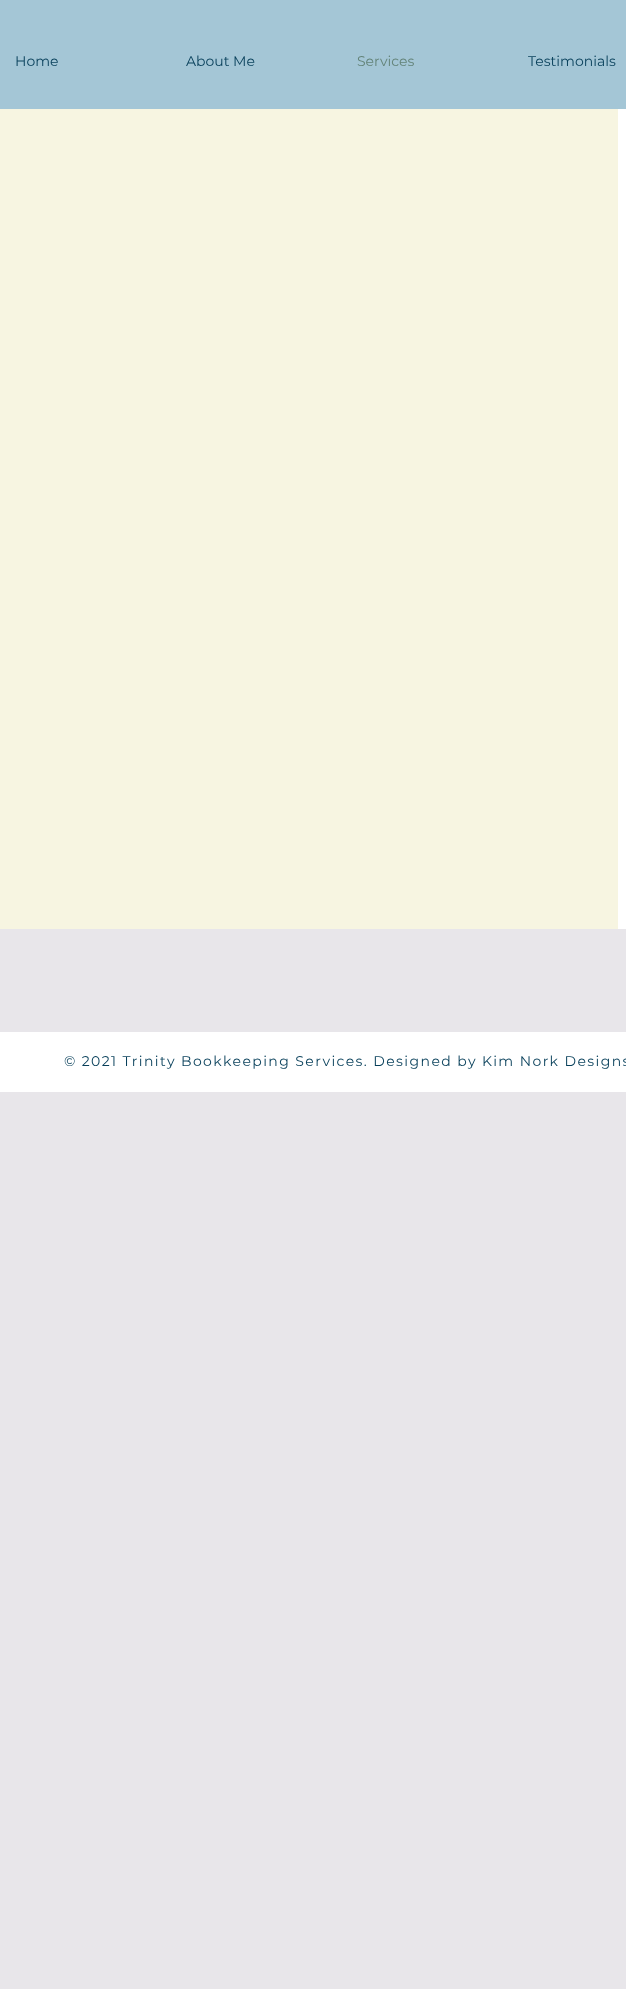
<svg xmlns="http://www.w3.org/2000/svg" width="626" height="1989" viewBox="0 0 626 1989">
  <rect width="100%" height="100%" fill="rgb(232,230,234)"/>
  <rect x="0" y="0" width="626" height="109" fill="rgb(164,198,214)"/>
  <g font-family="Montserrat" font-size="14" fill="rgb(7,63,90)">
    <text x="15" y="66">Home</text>
    <text x="186" y="66">About Me</text>
  </g>
  <text x="357" y="66" font-family="Montserrat" font-size="14" fill="rgb(99,131,120)">Services</text>
  <text x="528" y="66" font-family="Montserrat" font-size="14" fill="rgb(7,63,90)">Testimonials</text>
  <rect x="0" y="109" width="618" height="820" fill="rgb(247,245,225)"/>
  <rect x="618" y="109" width="8" height="820" fill="rgb(255,255,255)"/>
  <rect x="0" y="1032" width="626" height="60" fill="rgb(255,255,255)"/>
  <text x="64" y="1066" font-family="Montserrat" font-size="14" letter-spacing="1.4" fill="rgb(7,63,90)">© 2021 Trinity Bookkeeping Services. Designed by Kim Nork Designs</text>
</svg>
